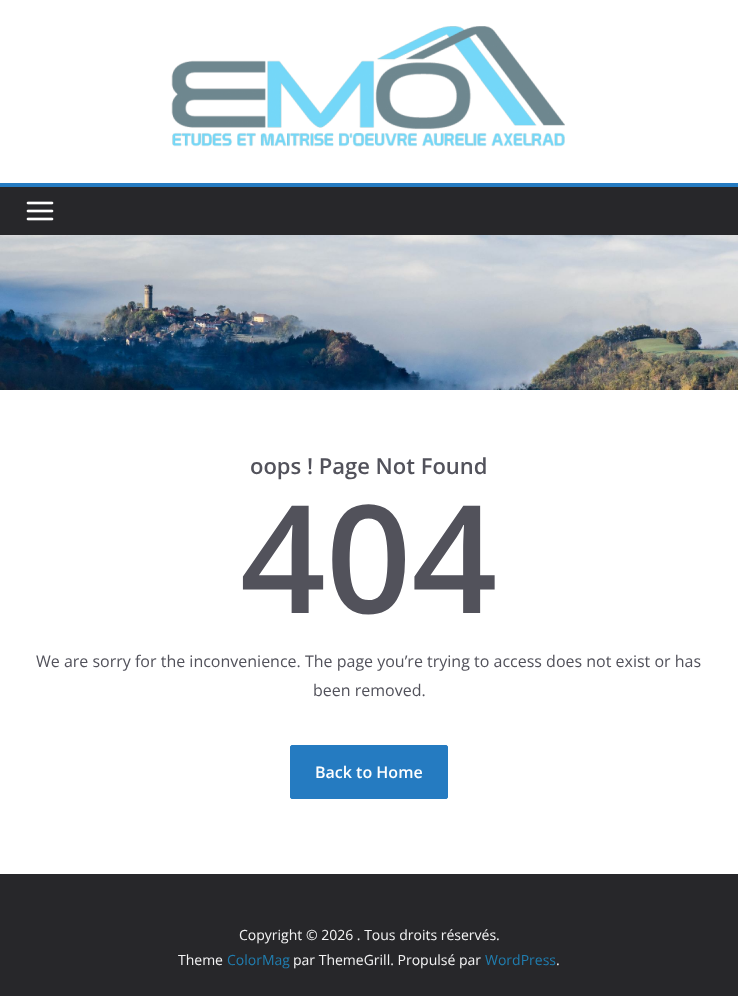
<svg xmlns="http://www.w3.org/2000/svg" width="738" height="996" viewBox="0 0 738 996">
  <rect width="100%" height="100%" fill="rgb(255,255,255)"/>
  <image x="171" y="26" width="394" height="121" href="pic1.png"/>
  <rect x="0" y="187" width="738" height="48" fill="rgb(39,39,42)"/>
  <rect x="0" y="183" width="738" height="4" fill="rgb(37,123,193)"/>
  <image x="26" y="201" width="28" height="20" href="pic2.png"/>
  <image x="0" y="235" width="738" height="155" href="pic3.png"/>
  <text x="250" y="474" font-family="Open Sans" font-size="22" font-weight="600" fill="rgb(82,82,91)">oops ! Page Not Found</text>
  <text x="240" y="613" font-family="Open Sans" font-size="150" font-weight="600" fill="rgb(82,82,91)">404</text>
  <g font-family="Open Sans" font-size="16" fill="rgb(82,82,91)">
    <text x="36" y="667">We are sorry for the inconvenience. The page you’re trying to access does not exist or has</text>
    <text x="313" y="696">been removed.</text>
  </g>
  <rect x="290.5" y="745.5" width="157" height="53" rx="1.5" fill="rgb(37,123,193)" stroke="rgb(37,123,193)"/>
  <text x="315" y="778" font-family="Open Sans" font-size="16" font-weight="600" fill="rgb(255,255,255)">Back to Home</text>
  <rect x="0" y="874" width="738" height="122" fill="rgb(39,39,42)"/>
  <g font-family="Open Sans" font-size="14" fill="rgb(244,244,245)">
    <text x="239" y="940">Copyright © 2026 . Tous droits réservés.</text>
    <text x="178" y="965">Theme</text>
  </g>
  <text x="227" y="965" font-family="Open Sans" font-size="14" fill="rgb(32,125,175)">ColorMag</text>
  <text x="293" y="965" font-family="Open Sans" font-size="14" fill="rgb(244,244,245)">par ThemeGrill. Propulsé par</text>
  <text x="485" y="965" font-family="Open Sans" font-size="14" fill="rgb(32,125,175)">WordPress</text>
  <text x="556" y="965" font-family="Open Sans" font-size="14" fill="rgb(244,244,245)">.</text>
</svg>
